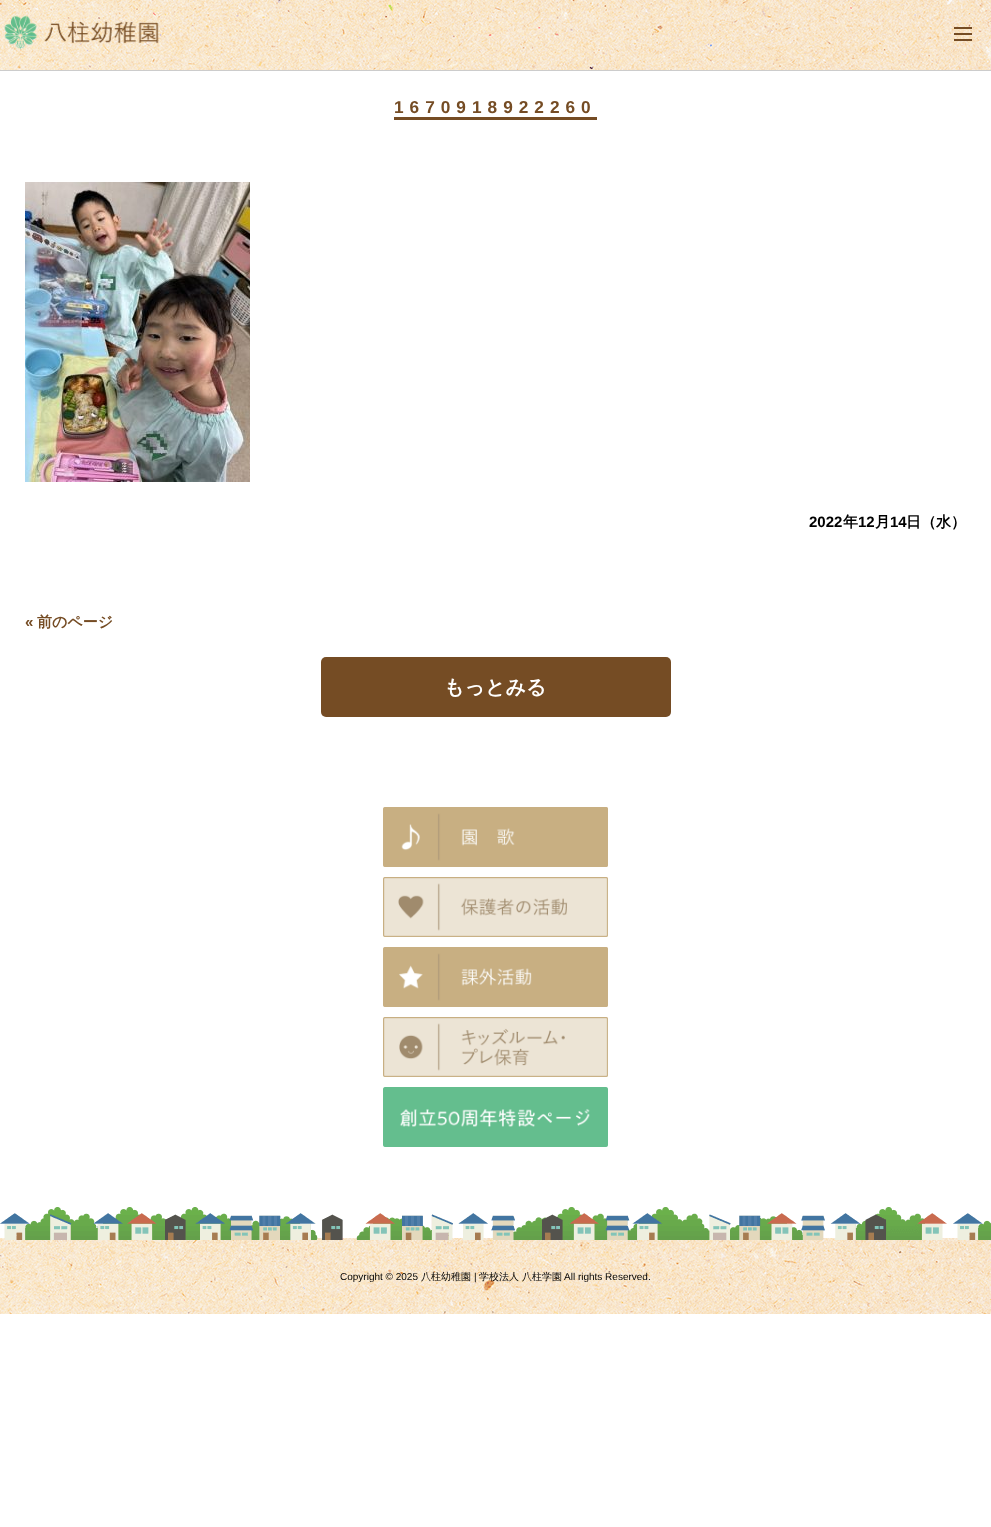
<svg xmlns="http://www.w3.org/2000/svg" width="991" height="1527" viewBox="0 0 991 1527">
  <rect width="100%" height="100%" fill="rgb(255,255,255)"/>
  <image x="0" y="0" width="991" height="70" href="pic1.png"/>
  <rect x="0" y="70" width="991" height="1" fill="rgb(204,204,204)"/>
  <image x="4" y="15" width="155" height="35" href="pic2.png"/>
  <rect x="954" y="33" width="18" height="2" fill="rgb(117,76,36)"/>
  <rect x="954" y="27" width="18" height="2" fill="rgb(117,76,36)"/>
  <rect x="954" y="39" width="18" height="2" fill="rgb(117,76,36)"/>
  <text x="394" y="113" font-family="Liberation Sans" font-size="17.25" font-weight="bold" letter-spacing="6" fill="rgb(117,76,36)">1670918922260</text>
  <rect x="394" y="117" width="203" height="3" fill="rgb(117,76,36)"/>
  <image x="25" y="182" width="225" height="300" href="pic3.png"/>
  <text x="809" y="527" font-family="Liberation Sans" font-size="15" font-weight="bold" fill="rgb(0,0,0)">2022</text>
  <text x="843" y="527" font-family="WenQuanYi Zen Hei" font-size="15" font-weight="bold" fill="rgb(0,0,0)">年</text>
  <text x="858" y="527" font-family="Liberation Sans" font-size="15" font-weight="bold" fill="rgb(0,0,0)">12</text>
  <text x="875" y="527" font-family="WenQuanYi Zen Hei" font-size="15" font-weight="bold" fill="rgb(0,0,0)">月</text>
  <text x="890" y="527" font-family="Liberation Sans" font-size="15" font-weight="bold" fill="rgb(0,0,0)">14</text>
  <text x="906" y="527" font-family="WenQuanYi Zen Hei" font-size="15" font-weight="bold" fill="rgb(0,0,0)">日（水）</text>
  <text x="25" y="627" font-family="Liberation Sans" font-size="15" font-weight="bold" fill="rgb(117,76,36)">«</text>
  <text x="37" y="627" font-family="WenQuanYi Zen Hei" font-size="15" font-weight="bold" fill="rgb(117,76,36)">前のページ</text>
  <rect x="321" y="657" width="350" height="60" rx="5" fill="rgb(117,76,36)"/>
  <text x="444" y="694" font-family="WenQuanYi Zen Hei" font-size="20" font-weight="bold" fill="rgb(255,255,255)">もっとみる</text>
  <image x="383" y="807" width="225" height="60" href="pic4.png"/>
  <image x="383" y="877" width="225" height="60" href="pic5.png"/>
  <image x="383" y="947" width="225" height="60" href="pic6.png"/>
  <image x="383" y="1017" width="225" height="60" href="pic7.png"/>
  <image x="383" y="1087" width="225" height="60" href="pic8.png"/>
  <image x="0" y="1207" width="991" height="107" href="pic9.png"/>
  <text x="340" y="1280" font-family="Liberation Sans" font-size="10" fill="rgb(0,0,0)">Copyright © 2025</text>
  <text x="421" y="1280" font-family="WenQuanYi Zen Hei" font-size="10" font-weight="500" fill="rgb(0,0,0)">八柱幼稚園</text>
  <text x="474" y="1280" font-family="Liberation Sans" font-size="10" fill="rgb(0,0,0)">|</text>
  <text x="479" y="1280" font-family="WenQuanYi Zen Hei" font-size="10" font-weight="500" fill="rgb(0,0,0)">学校法人 八柱学園</text>
  <text x="564" y="1280" font-family="Liberation Sans" font-size="10" fill="rgb(0,0,0)">All rights Reserved.</text>
</svg>
